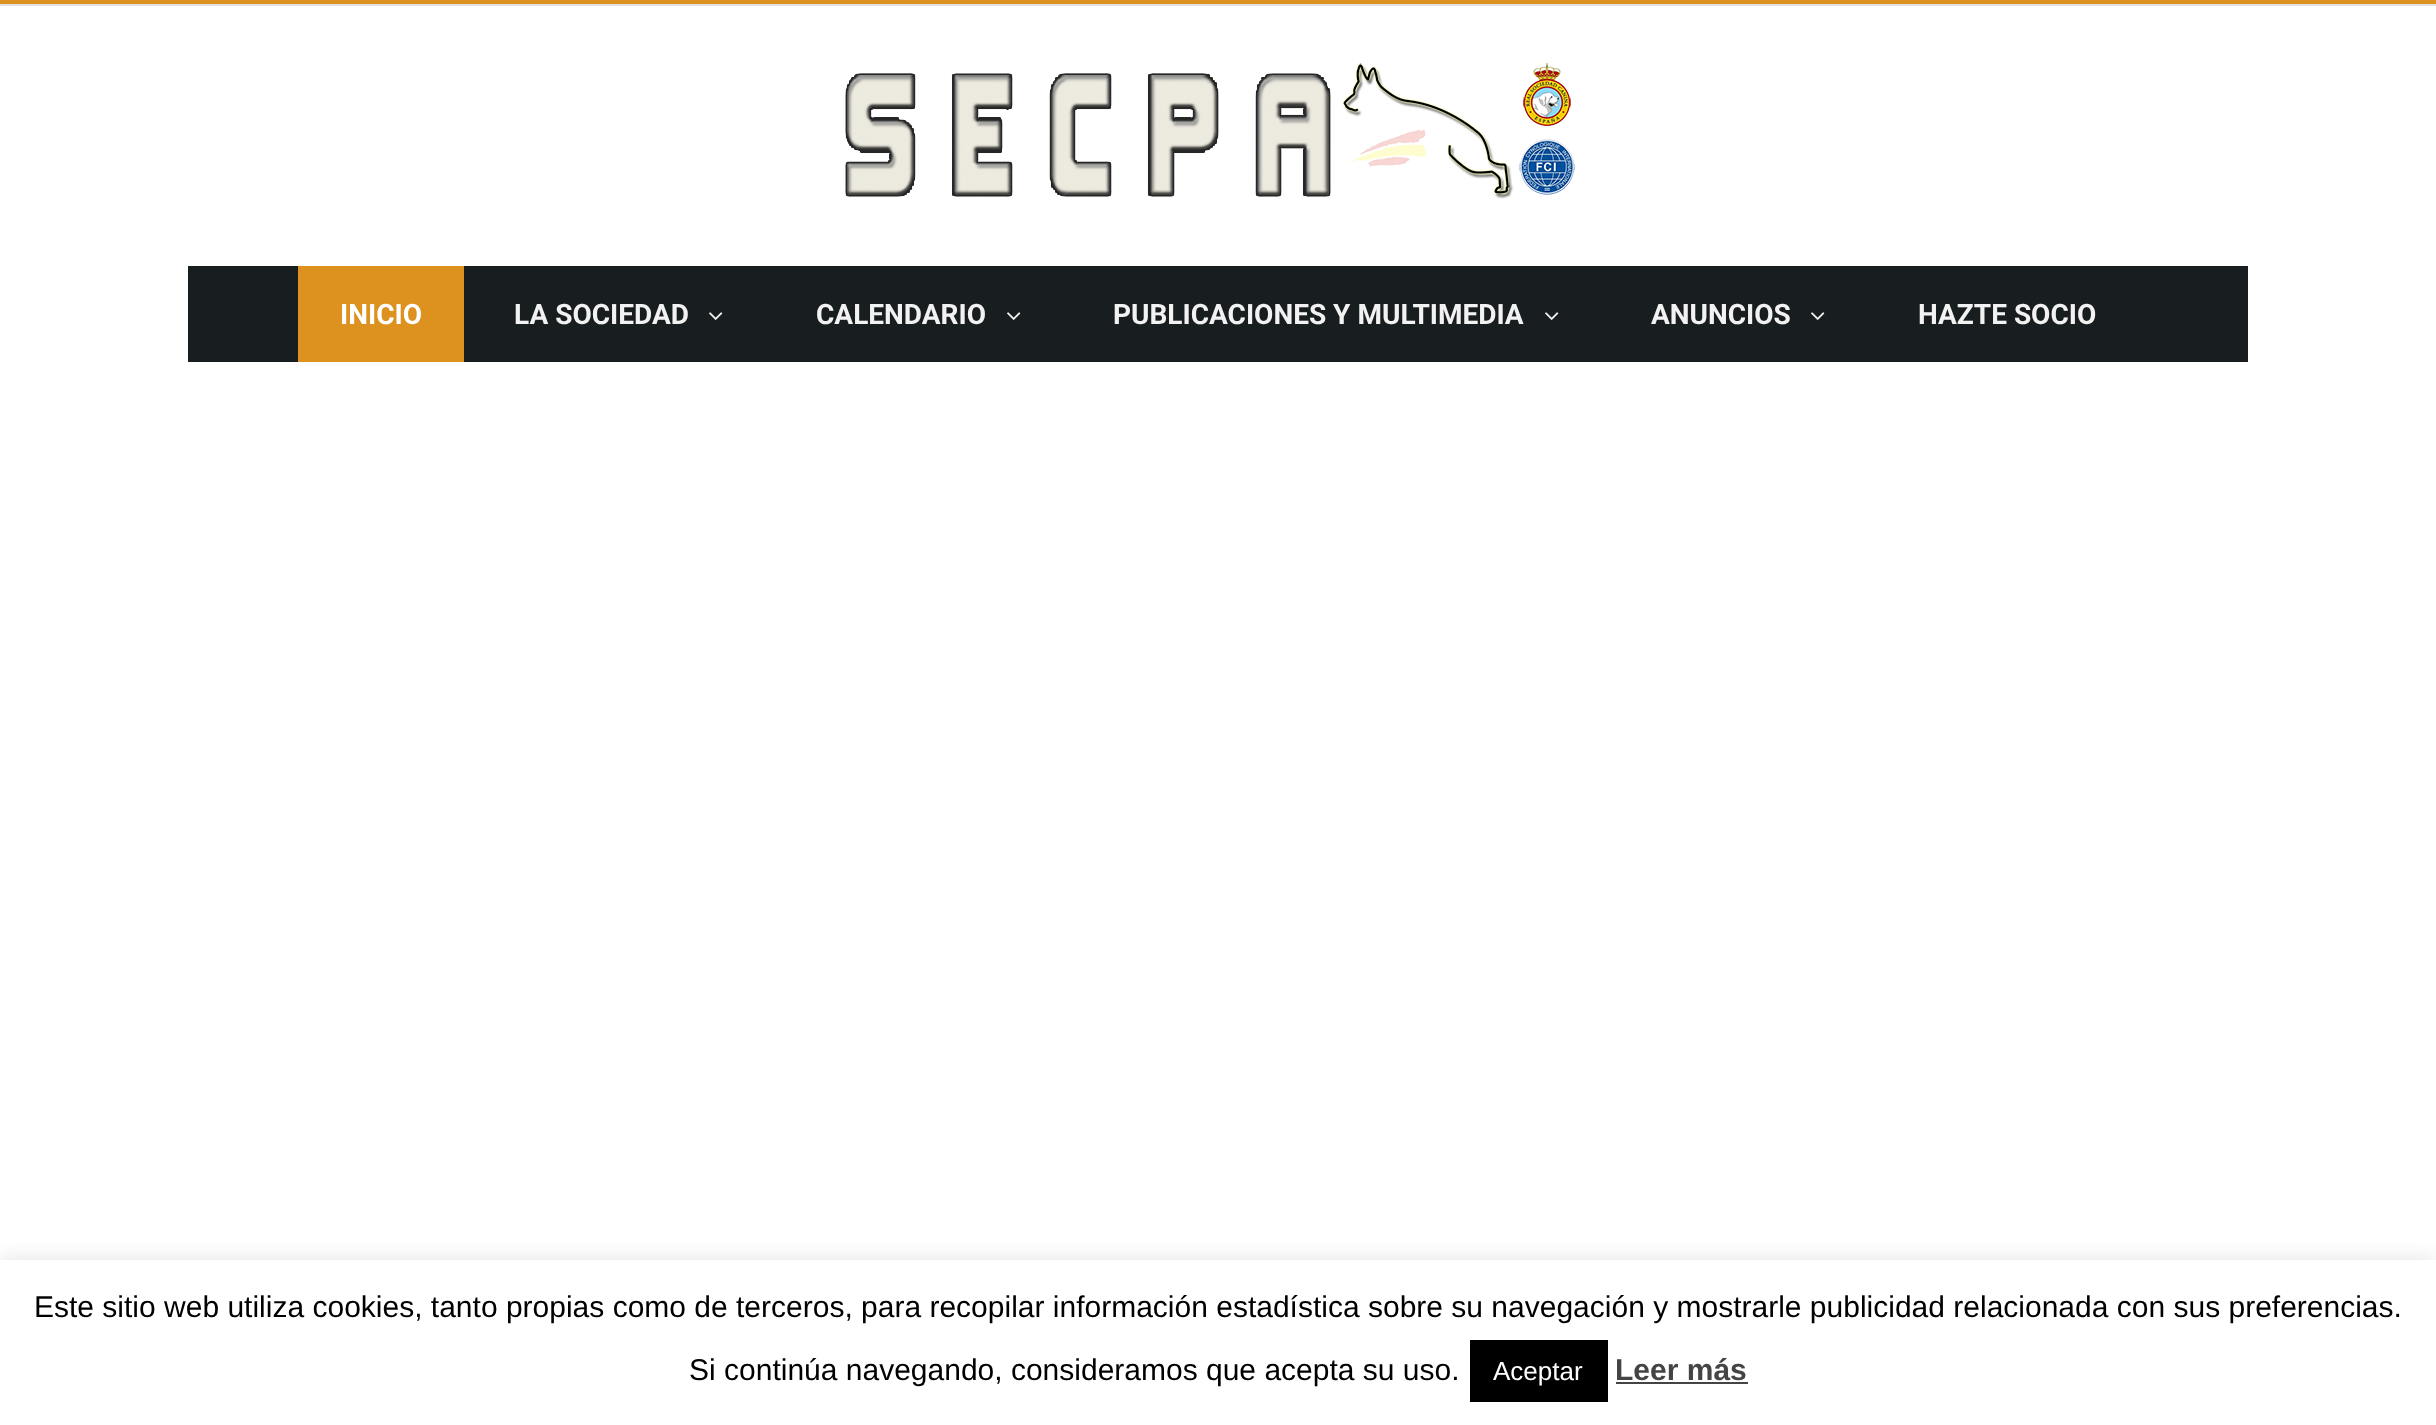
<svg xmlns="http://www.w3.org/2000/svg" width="2436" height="1425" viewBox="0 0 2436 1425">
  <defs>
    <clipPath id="clip1"><rect x="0" y="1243" width="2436" height="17"/></clipPath>
  </defs>
  <rect width="100%" height="100%" fill="rgb(255,255,255)"/>
  <rect x="0" y="0" width="2436" height="4" fill="rgb(221,145,31)"/>
  <rect x="0" y="4" width="2436" height="2" fill="rgb(226,226,226)"/>
  <image x="845" y="62" width="730" height="137" href="pic1.png"/>
  <rect x="188" y="266" width="2060" height="96" fill="rgb(24,29,31)"/>
  <rect x="298" y="266" width="166" height="96" fill="rgb(221,145,31)"/>
  <text x="340" y="324" font-family="Roboto" font-size="28" font-weight="bold" fill="rgb(255,255,255)">INICIO</text>
  <text x="514" y="324" font-family="Roboto" font-size="28" font-weight="bold" fill="rgb(242,242,242)">LA SOCIEDAD</text>
  <image x="709" y="312" width="14" height="8" href="pic2.png"/>
  <text x="816" y="324" font-family="Roboto" font-size="28" font-weight="bold" fill="rgb(242,242,242)">CALENDARIO</text>
  <image x="1007" y="312" width="14" height="8" href="pic2.png"/>
  <text x="1113" y="324" font-family="Roboto" font-size="28" font-weight="bold" fill="rgb(242,242,242)">PUBLICACIONES Y MULTIMEDIA</text>
  <image x="1545" y="312" width="14" height="8" href="pic2.png"/>
  <text x="1651" y="324" font-family="Roboto" font-size="28" font-weight="bold" fill="rgb(242,242,242)">ANUNCIOS</text>
  <image x="1811" y="312" width="14" height="8" href="pic2.png"/>
  <text x="1918" y="324" font-family="Roboto" font-size="28" font-weight="bold" fill="rgb(242,242,242)">HAZTE SOCIO</text>
  <g clip-path="url(#clip1)">
    <rect x="0" y="1258" width="2436" height="166" fill="rgba(172,171,171,0.3)" filter="blur(10px)"/>
  </g>
  <g font-family="Liberation Sans" font-size="30" fill="rgb(0,0,0)">
    <text x="34" y="1317">Este sitio web utiliza cookies, tanto propias como de terceros, para recopilar información estadística sobre su navegación y mostrarle publicidad relacionada con sus preferencias.</text>
    <text x="689" y="1380">Si continúa navegando, consideramos que acepta su uso.</text>
  </g>
  <rect x="1470" y="1340" width="138" height="62" fill="rgb(0,0,0)"/>
  <text x="1493" y="1380" font-family="Liberation Sans" font-size="26" fill="rgb(255,255,255)">Aceptar</text>
  <text x="1615" y="1380" font-family="Liberation Sans" font-size="30" font-weight="bold" fill="rgb(68,68,68)">Leer más</text>
  <rect x="1616" y="1382" width="132" height="2" fill="rgb(68,68,68)"/>
</svg>
